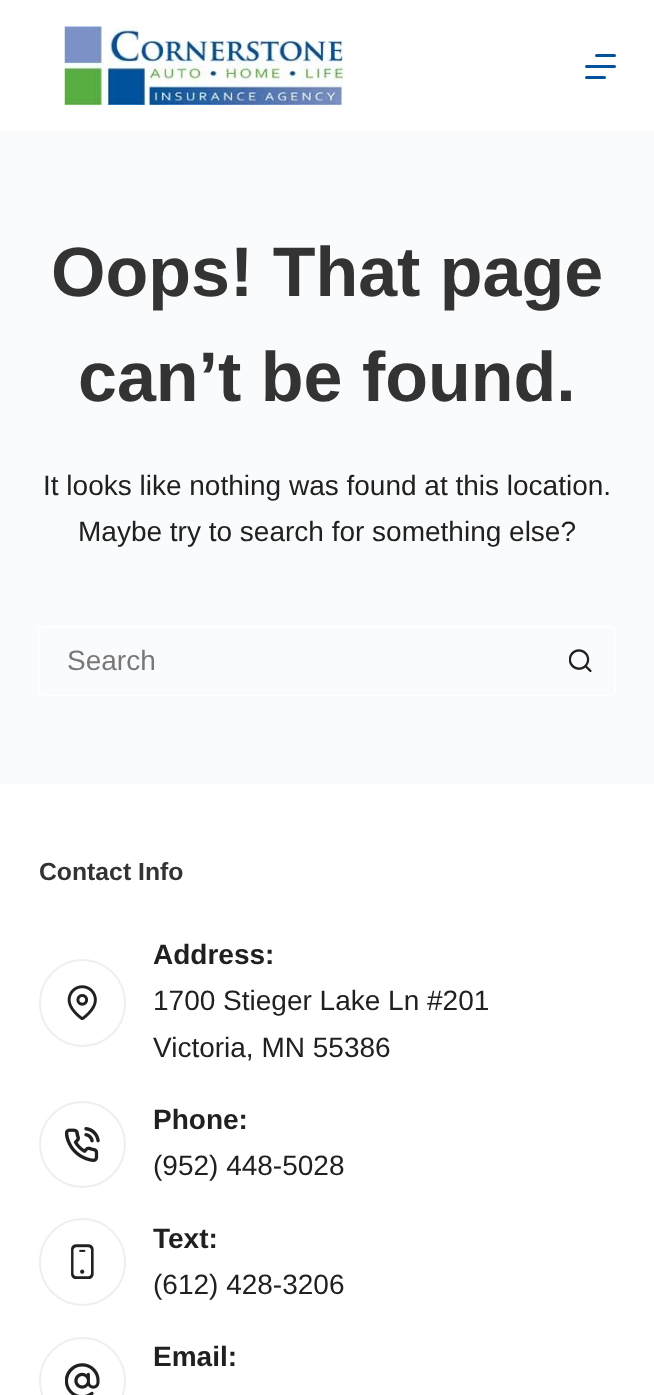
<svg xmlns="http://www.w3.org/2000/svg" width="654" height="1395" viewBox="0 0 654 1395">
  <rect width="100%" height="100%" fill="rgb(250,251,252)"/>
  <rect x="0" y="0" width="654" height="131" fill="rgb(255,255,255)"/>
  <image x="64" y="26" width="279" height="79" href="pic1.png"/>
  <rect x="595" y="54" width="21" height="3" rx="1.5" fill="rgb(1,82,156)"/>
  <rect x="585" y="65" width="31" height="3" rx="1.5" fill="rgb(1,82,156)"/>
  <rect x="585" y="76" width="21" height="3" rx="1.5" fill="rgb(1,82,156)"/>
  <g font-family="Liberation Sans" font-size="70" font-weight="bold" fill="rgb(51,51,51)">
    <text x="51" y="296">Oops! That page</text>
    <text x="78" y="401">can’t be found.</text>
  </g>
  <g font-family="Liberation Sans" font-size="28" fill="rgb(32,32,32)">
    <text x="43" y="495">It looks like nothing was found at this location.</text>
    <text x="78" y="541">Maybe try to search for something else?</text>
  </g>
  <path d="M44 626H546V696H44C41 696 38 694 38 691V632C38 629 41 626 44 626ZM44 628H546V695H44C42 695 40 693 40 691V632C40 630 42 628 44 628Z" fill="rgb(255,255,255)" fill-rule="evenodd"/>
  <text x="67" y="670" font-family="Liberation Sans" font-size="28" fill="rgb(120,120,121)">Search</text>
  <path d="M546 626H611C614 626 616 629 616 632V691C616 694 614 696 611 696H546ZM546 628H611C613 628 614 630 614 632V691C614 693 613 695 611 695H546Z" fill="rgb(255,255,255)" fill-rule="evenodd"/>
  <image x="569" y="649" width="23" height="23" href="pic2.png"/>
  <rect x="0" y="784" width="654" height="611" fill="rgb(255,255,255)"/>
  <text x="39" y="880" font-family="Liberation Sans" font-size="24.75" font-weight="bold" fill="rgb(51,51,51)">Contact Info</text>
  <rect x="40" y="960" width="85" height="86" rx="42.5" fill="none" stroke="rgb(237,239,242)" stroke-width="2"/>
  <image x="67" y="985" width="30" height="35" href="pic3.png"/>
  <text x="153" y="964" font-family="Liberation Sans" font-size="28" font-weight="bold" fill="rgb(32,32,32)">Address:</text>
  <g font-family="Liberation Sans" font-size="28" fill="rgb(32,32,32)">
    <text>
      <tspan x="153" y="1010">1700 Stieger Lake Ln #201</tspan>
      <tspan x="153" y="1057">Victoria, MN 55386</tspan>
    </text>
  </g>
  <circle cx="82.5" cy="1144.5" r="42.5" fill="none" stroke="rgb(237,239,242)" stroke-width="2"/>
  <image x="65" y="1127" width="35" height="35" href="pic4.png"/>
  <text x="153" y="1129" font-family="Liberation Sans" font-size="28" font-weight="bold" fill="rgb(32,32,32)">Phone:</text>
  <text x="153" y="1175" font-family="Liberation Sans" font-size="28" fill="rgb(32,32,32)">(952) 448-5028</text>
  <rect x="40" y="1219" width="85" height="86" rx="42.5" fill="none" stroke="rgb(237,239,242)" stroke-width="2"/>
  <image x="71" y="1244" width="23" height="35" href="pic5.png"/>
  <text x="153" y="1248" font-family="Liberation Sans" font-size="28" font-weight="bold" fill="rgb(32,32,32)">Text:</text>
  <text x="153" y="1294" font-family="Liberation Sans" font-size="28" fill="rgb(32,32,32)">(612) 428-3206</text>
  <rect x="40" y="1338" width="85" height="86" rx="42.5" fill="none" stroke="rgb(237,239,242)" stroke-width="2"/>
  <image x="65" y="1363" width="35" height="32" href="pic6.png"/>
  <text x="153" y="1366" font-family="Liberation Sans" font-size="28" font-weight="bold" fill="rgb(32,32,32)">Email:</text>
</svg>
